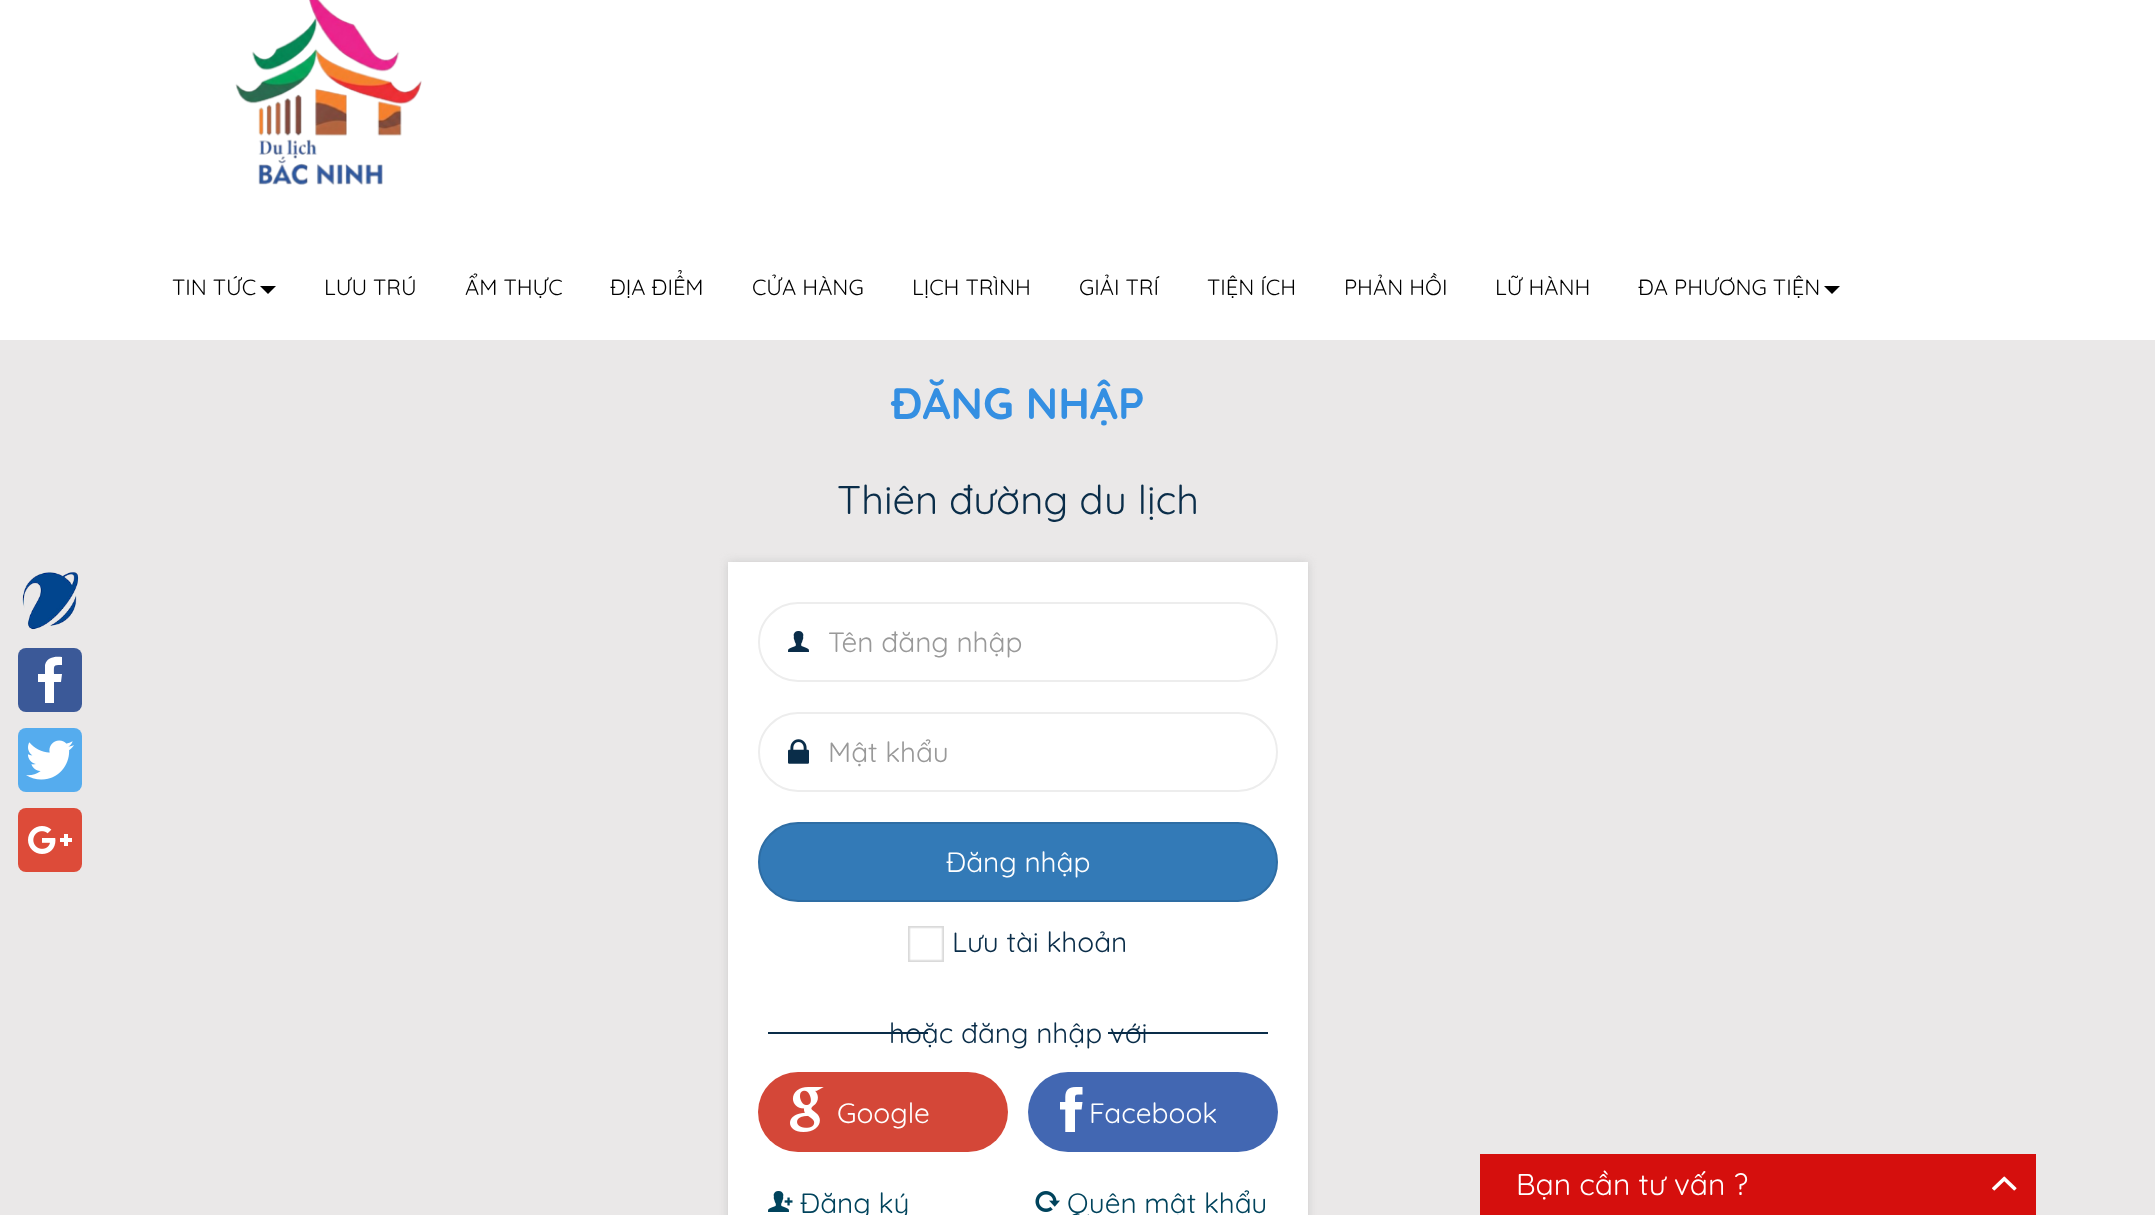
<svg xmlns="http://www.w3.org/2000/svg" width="2155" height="1215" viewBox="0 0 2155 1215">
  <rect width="100%" height="100%" fill="rgb(234,232,232)"/>
  <rect x="0" y="0" width="2155" height="340" fill="rgb(255,255,255)"/>
  <image x="235" y="0" width="187" height="185" href="pic1.png"/>
  <text x="172" y="295" font-family="Quicksand" font-size="22" fill="rgb(0,0,0)">TIN TỨC</text>
  <path d="M260 286H276L268 294Z" fill="rgb(0,0,0)"/>
  <g font-family="Quicksand" font-size="22" fill="rgb(0,0,0)">
    <text x="324" y="295">LƯU TRÚ</text>
    <text x="465" y="295">ẨM THỰC</text>
    <text x="610" y="295">ĐỊA ĐIỂM</text>
    <text x="752" y="295">CỬA HÀNG</text>
    <text x="912" y="295">LỊCH TRÌNH</text>
    <text x="1079" y="295">GIẢI TRÍ</text>
    <text x="1207" y="295">TIỆN ÍCH</text>
    <text x="1344" y="295">PHẢN HỒI</text>
    <text x="1495" y="295">LỮ HÀNH</text>
    <text x="1638" y="295">ĐA PHƯƠNG TIỆN</text>
  </g>
  <path d="M1824 286H1840L1832 294Z" fill="rgb(0,0,0)"/>
  <image x="22" y="572" width="57" height="58" href="pic2.png"/>
  <rect x="18" y="648" width="64" height="64" rx="8" fill="rgb(59,89,152)"/>
  <path d="M54 703V682H61L62 674H54C54 665 53 665 62 665V657C55 656 47 657 45 665V674H38V682H45V703Z" fill="rgb(255,255,255)"/>
  <rect x="18" y="728" width="64" height="64" rx="8" fill="rgb(85,172,238)"/>
  <image x="26" y="740" width="48" height="40" href="pic3.png"/>
  <rect x="18" y="808" width="64" height="64" rx="8" fill="rgb(221,75,57)"/>
  <image x="28" y="826" width="44" height="28" href="pic4.png"/>
  <rect x="1480" y="1154" width="556" height="61" fill="rgb(213,15,13)"/>
  <text x="1516" y="1195" font-family="Quicksand" font-size="30" fill="rgb(255,255,255)">Bạn cần tư vấn ?</text>
  <image x="1992" y="1176" width="25" height="15" href="pic5.png"/>
  <text x="891" y="419" font-family="Quicksand" font-size="44" font-weight="bold" fill="rgb(52,143,226)">ĐĂNG NHẬP</text>
  <text x="837" y="514" font-family="Quicksand" font-size="40" fill="rgb(10,45,73)">Thiên đường du lịch</text>
  <rect x="728" y="562" width="580" height="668" fill="rgb(204,204,204)" filter="blur(5px)"/>
  <rect x="728" y="562" width="580" height="653" fill="rgb(255,255,255)"/>
  <rect x="759" y="603" width="518" height="78" rx="39" fill="none" stroke="rgb(237,237,237)" stroke-width="2"/>
  <image x="788" y="631" width="21" height="21" href="pic6.png"/>
  <text x="828" y="652" font-family="Quicksand" font-size="28" fill="rgb(153,153,153)">Tên đăng nhập</text>
  <rect x="759" y="713" width="518" height="78" rx="39" fill="none" stroke="rgb(237,237,237)" stroke-width="2"/>
  <image x="788" y="739" width="21" height="25" href="pic7.png"/>
  <text x="828" y="762" font-family="Quicksand" font-size="28" fill="rgb(153,153,153)">Mật khẩu</text>
  <rect x="759" y="823" width="518" height="78" rx="39" fill="rgb(51,122,183)" stroke="rgb(46,109,164)" stroke-width="2"/>
  <text x="946" y="872" font-family="Quicksand" font-size="28" fill="rgb(255,255,255)">Đăng nhập</text>
  <image x="908" y="926" width="36" height="36" href="pic8.png"/>
  <text x="952" y="952" font-family="Quicksand" font-size="28" fill="rgb(10,45,73)">Lưu tài khoản</text>
  <rect x="768" y="1032" width="160" height="2" fill="rgb(10,45,73)"/>
  <text x="889" y="1043" font-family="Quicksand" font-size="28" fill="rgb(10,45,73)">hoặc đăng nhập với</text>
  <rect x="1108" y="1032" width="160" height="2" fill="rgb(10,45,73)"/>
  <rect x="758" y="1072" width="250" height="80" rx="40" fill="rgb(212,71,56)"/>
  <image x="790" y="1087" width="34" height="45" href="pic9.png"/>
  <text x="837" y="1123" font-family="Quicksand" font-size="28" fill="rgb(255,255,255)">Google</text>
  <rect x="1028" y="1072" width="250" height="80" rx="40" fill="rgb(66,103,178)"/>
  <image x="1060" y="1087" width="23" height="45" href="pic10.png"/>
  <text x="1089" y="1123" font-family="Quicksand" font-size="28" fill="rgb(255,255,255)">Facebook</text>
  <image x="768" y="1191" width="25" height="21" href="pic11.png"/>
  <text x="800" y="1213" font-family="Quicksand" font-size="28" fill="rgb(0,67,92)">Đăng ký</text>
  <image x="1035" y="1191" width="25" height="21" href="pic12.png"/>
  <text x="1067" y="1213" font-family="Quicksand" font-size="28" fill="rgb(0,67,92)">Quên mật khẩu</text>
</svg>
